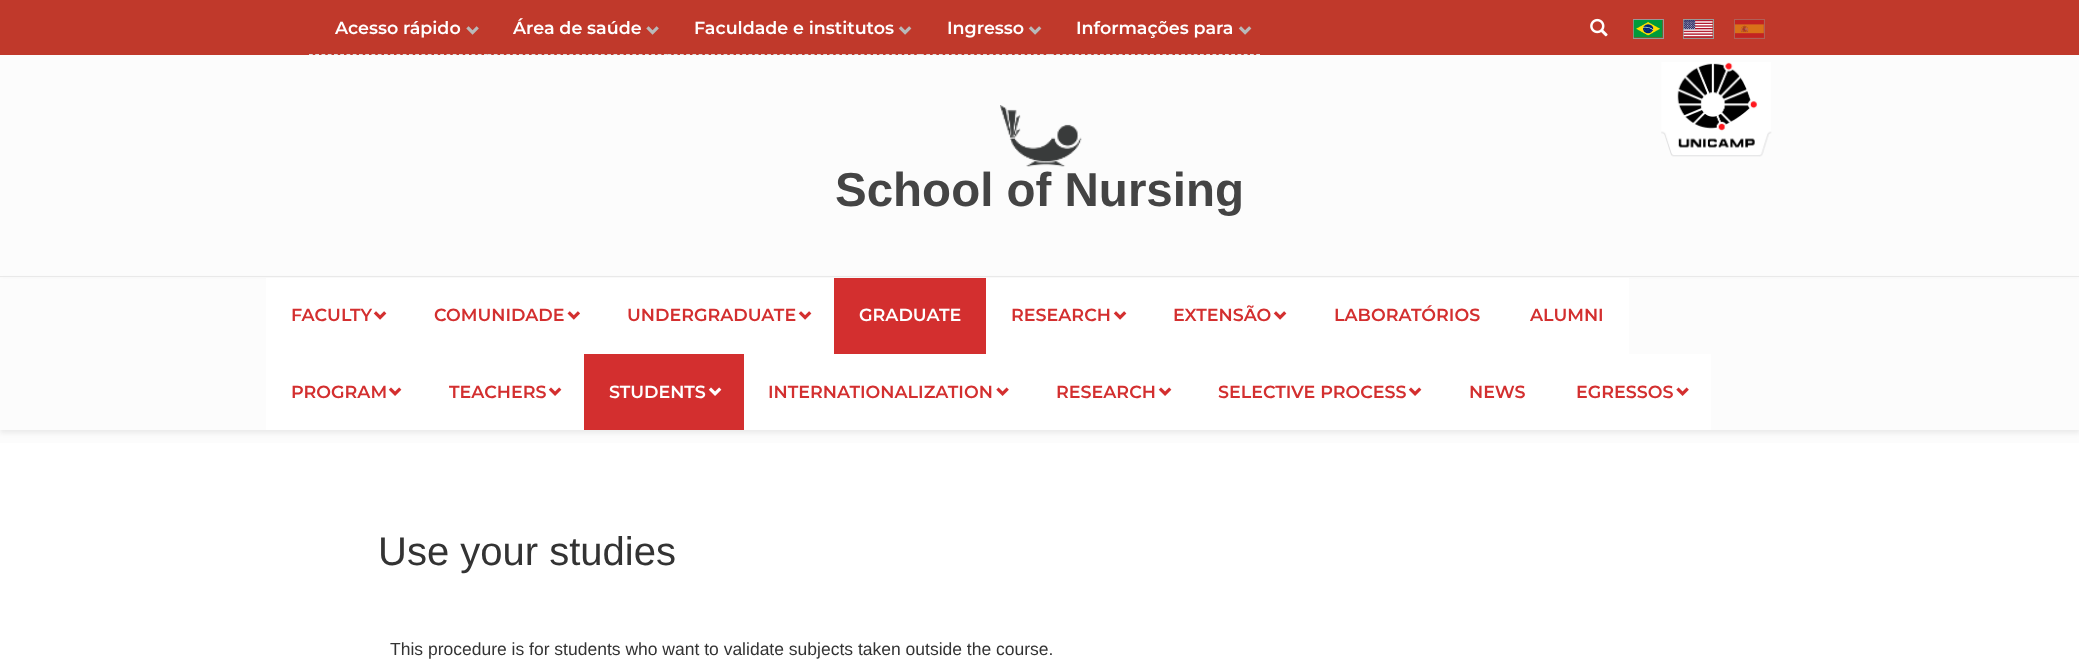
<svg xmlns="http://www.w3.org/2000/svg" width="2079" height="663" viewBox="0 0 2079 663">
  <rect width="100%" height="100%" fill="rgb(255,255,255)"/>
  <rect x="0" y="0" width="2079" height="55" fill="rgb(192,57,43)"/>
  <rect x="0" y="55" width="2079" height="223" fill="rgb(252,252,252)"/>
  <path d="M309 54.5H487.5" fill="none" stroke="rgb(221,221,221)" stroke-width="1.2" stroke-dasharray="3.75 2.5"/>
  <text x="335" y="34" font-family="Montserrat" font-size="17.5" font-weight="600" fill="rgb(255,255,255)">Acesso rápido</text>
  <image x="466" y="26" width="13" height="9" href="pic1.png"/>
  <path d="M487.5 54.5H667.5" fill="none" stroke="rgb(221,221,221)" stroke-width="1.2" stroke-dasharray="3.75 2.55"/>
  <text x="513" y="34" font-family="Montserrat" font-size="17.5" font-weight="600" fill="rgb(255,255,255)">Área de saúde</text>
  <image x="646" y="26" width="13" height="9" href="pic1.png"/>
  <path d="M667.5 54.5H920" fill="none" stroke="rgb(221,221,221)" stroke-width="1.2" stroke-dasharray="3.75 2.48"/>
  <text x="694" y="34" font-family="Montserrat" font-size="17.5" font-weight="600" fill="rgb(255,255,255)">Faculdade e institutos</text>
  <image x="898" y="26" width="14" height="9" href="pic2.png"/>
  <path d="M920 54.5H1050" fill="none" stroke="rgb(221,221,221)" stroke-width="1.2" stroke-dasharray="3.75 2.56"/>
  <text x="947" y="34" font-family="Montserrat" font-size="17.5" font-weight="600" fill="rgb(255,255,255)">Ingresso</text>
  <image x="1028" y="26" width="14" height="9" href="pic2.png"/>
  <path d="M1050 54.5H1260" fill="none" stroke="rgb(221,221,221)" stroke-width="1.2" stroke-dasharray="3.75 2.5"/>
  <text x="1076" y="34" font-family="Montserrat" font-size="17.5" font-weight="600" fill="rgb(255,255,255)">Informações para</text>
  <image x="1238" y="26" width="14" height="9" href="pic2.png"/>
  <image x="1590" y="18" width="18" height="19" href="pic3.png"/>
  <rect x="1633.5" y="19.5" width="30" height="19" fill="none" stroke="rgb(153,153,153)"/>
  <rect x="1683.5" y="19.5" width="30" height="19" fill="none" stroke="rgb(153,153,153)"/>
  <rect x="1734.5" y="19.5" width="30" height="19" fill="none" stroke="rgb(176,95,87)"/>
  <image x="1633" y="20" width="30" height="18" href="pic4.png"/>
  <image x="1683" y="20" width="30" height="18" href="pic5.png"/>
  <image x="1735" y="20" width="29" height="18" href="pic6.png"/>
  <rect x="0" y="276" width="2079" height="1" fill="rgb(234,234,234)"/>
  <image x="1661" y="62" width="111" height="95" href="pic7.png"/>
  <image x="1000" y="105" width="82" height="62" href="pic8.png"/>
  <text x="835" y="206" font-family="Liberation Sans" font-size="47.5" font-weight="bold" fill="rgb(68,68,68)">School of Nursing</text>
  <rect x="0" y="430" width="2079" height="13" fill="rgb(252,252,252)"/>
  <rect x="0" y="280" width="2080" height="153" fill="rgba(0,0,0,0.07)" filter="blur(2.5px)"/>
  <rect x="0" y="279" width="2079" height="151" fill="rgb(252,252,252)"/>
  <rect x="266" y="278" width="568" height="76" fill="rgb(255,255,255)"/>
  <text x="291" y="321" font-family="Montserrat" font-size="17.5" font-weight="600" fill="rgb(211,47,47)">FACULTY</text>
  <image x="373" y="311" width="14" height="9" href="pic9.png"/>
  <text x="434" y="321" font-family="Montserrat" font-size="17.5" font-weight="600" fill="rgb(211,47,47)">COMUNIDADE</text>
  <image x="567" y="311" width="13" height="9" href="pic10.png"/>
  <text x="627" y="321" font-family="Montserrat" font-size="17.5" font-weight="600" fill="rgb(211,47,47)">UNDERGRADUATE</text>
  <image x="798" y="311" width="14" height="9" href="pic9.png"/>
  <rect x="834" y="278" width="152" height="76" fill="rgb(211,47,47)"/>
  <text x="859" y="321" font-family="Montserrat" font-size="17.5" font-weight="600" fill="rgb(255,255,255)">GRADUATE</text>
  <rect x="986" y="278" width="643" height="76" fill="rgb(255,255,255)"/>
  <text x="1011" y="321" font-family="Montserrat" font-size="17.5" font-weight="600" fill="rgb(211,47,47)">RESEARCH</text>
  <image x="1113" y="311" width="14" height="9" href="pic9.png"/>
  <text x="1173" y="321" font-family="Montserrat" font-size="17.5" font-weight="600" fill="rgb(211,47,47)">EXTENSÃO</text>
  <image x="1273" y="311" width="14" height="9" href="pic9.png"/>
  <g font-family="Montserrat" font-size="17.5" font-weight="600" fill="rgb(211,47,47)">
    <text x="1334" y="321">LABORATÓRIOS</text>
    <text x="1530" y="321">ALUMNI</text>
  </g>
  <rect x="266" y="354" width="318" height="76" fill="rgb(255,255,255)"/>
  <text x="291" y="398" font-family="Montserrat" font-size="17.5" font-weight="600" fill="rgb(211,47,47)">PROGRAM</text>
  <image x="388" y="387" width="14" height="9" href="pic11.png"/>
  <text x="449" y="398" font-family="Montserrat" font-size="17.5" font-weight="600" fill="rgb(211,47,47)">TEACHERS</text>
  <image x="548" y="387" width="14" height="9" href="pic11.png"/>
  <rect x="584" y="354" width="160" height="76" fill="rgb(211,47,47)"/>
  <text x="609" y="398" font-family="Montserrat" font-size="17.5" font-weight="600" fill="rgb(255,255,255)">STUDENTS</text>
  <image x="708" y="387" width="14" height="9" href="pic12.png"/>
  <rect x="744" y="354" width="967" height="76" fill="rgb(255,255,255)"/>
  <text x="768" y="398" font-family="Montserrat" font-size="17.5" font-weight="600" fill="rgb(211,47,47)">INTERNATIONALIZATION</text>
  <image x="996" y="387" width="13" height="9" href="pic13.png"/>
  <text x="1056" y="398" font-family="Montserrat" font-size="17.5" font-weight="600" fill="rgb(211,47,47)">RESEARCH</text>
  <image x="1158" y="387" width="14" height="9" href="pic11.png"/>
  <text x="1218" y="398" font-family="Montserrat" font-size="17.5" font-weight="600" fill="rgb(211,47,47)">SELECTIVE PROCESS</text>
  <image x="1408" y="387" width="14" height="9" href="pic11.png"/>
  <g font-family="Montserrat" font-size="17.5" font-weight="600" fill="rgb(211,47,47)">
    <text x="1469" y="398">NEWS</text>
    <text x="1576" y="398">EGRESSOS</text>
  </g>
  <image x="1676" y="387" width="13" height="9" href="pic13.png"/>
  <text x="378" y="565" font-family="Liberation Sans" font-size="40" fill="rgb(51,51,51)">Use your studies</text>
  <text x="390" y="655" font-family="Liberation Sans" font-size="17.5" fill="rgb(51,51,51)">This procedure is for students who want to validate subjects taken outside the course.</text>
</svg>
